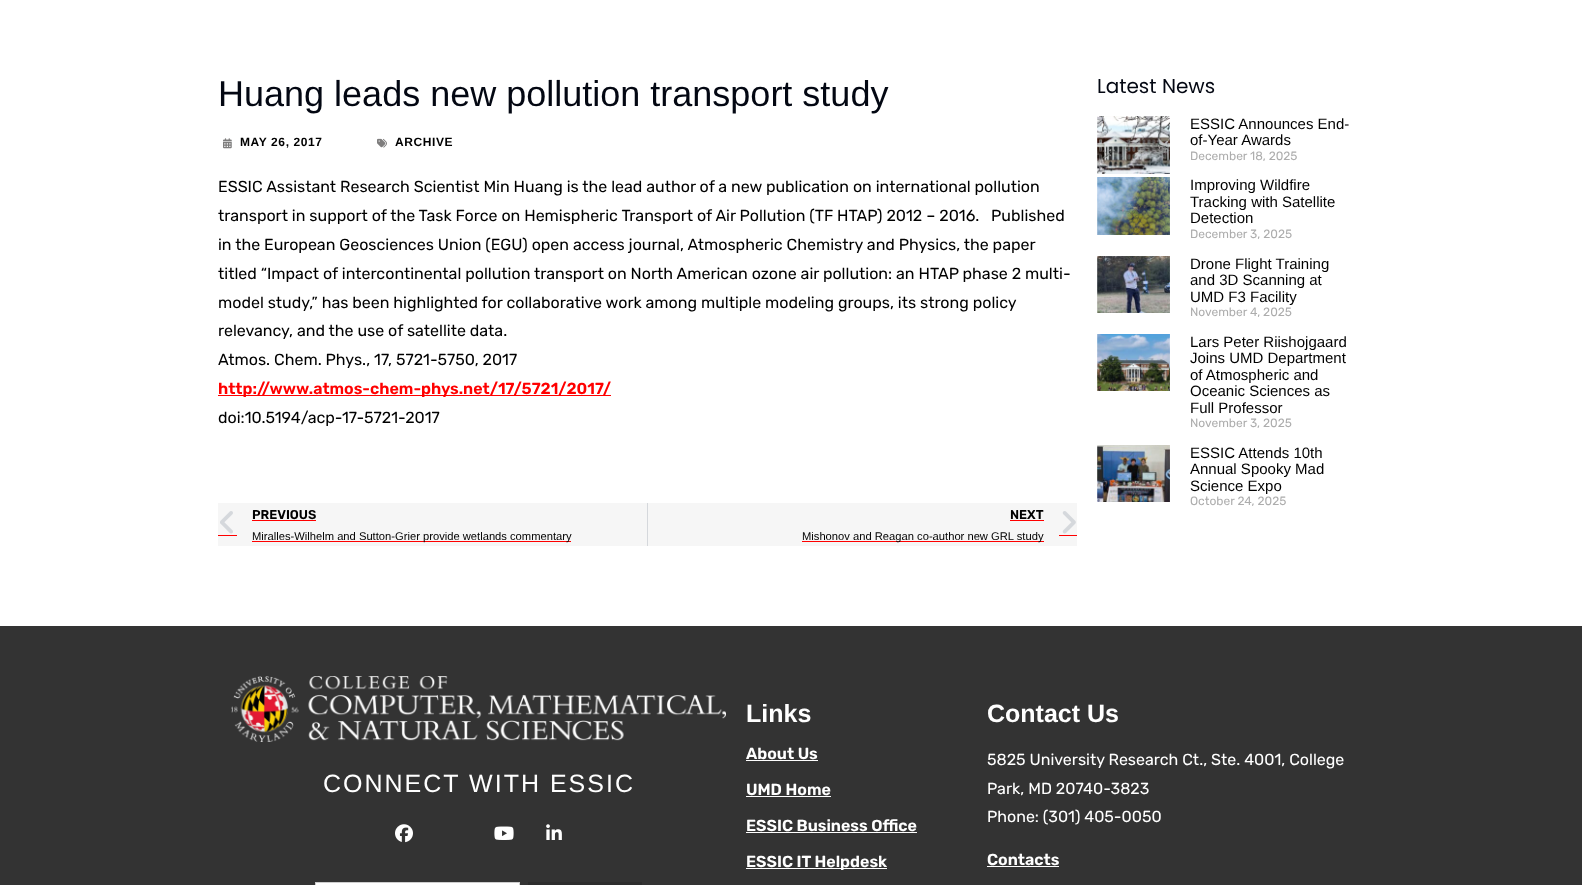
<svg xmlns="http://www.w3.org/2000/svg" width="1582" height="885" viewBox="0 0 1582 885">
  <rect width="100%" height="100%" fill="rgb(255,255,255)"/>
  <text x="218" y="106" font-family="Liberation Sans" font-size="36" fill="rgb(3,7,18)">Huang leads new pollution transport study</text>
  <image x="223" y="138" width="9" height="11" href="pic1.png"/>
  <text x="240" y="146" font-family="Liberation Sans" font-size="12" font-weight="bold" letter-spacing="0.6" fill="rgb(0,0,0)">MAY 26, 2017</text>
  <image x="377" y="138" width="10" height="10" href="pic2.png"/>
  <text x="395" y="146" font-family="Liberation Sans" font-size="12" font-weight="bold" letter-spacing="0.6" fill="rgb(0,0,0)">ARCHIVE</text>
  <g font-family="Rubik" font-size="16" fill="rgb(0,0,0)">
    <text xml:space="preserve"><tspan x="218" y="192">ESSIC Assistant Research Scientist Min Huang is the lead author of a new publication on international pollution</tspan><tspan x="218" y="221">transport in support of the Task Force on Hemispheric Transport of Air Pollution (TF HTAP) 2012 – 2016.   Published</tspan><tspan x="218" y="250">in the European Geosciences Union (EGU) open access journal, Atmospheric Chemistry and Physics, the paper</tspan><tspan x="218" y="279">titled “Impact of intercontinental pollution transport on North American ozone air pollution: an HTAP phase 2 multi-</tspan><tspan x="218" y="308">model study,” has been highlighted for collaborative work among multiple modeling groups, its strong policy</tspan><tspan x="218" y="336">relevancy, and the use of satellite data.</tspan><tspan x="218" y="365">Atmos. Chem. Phys., 17, 5721-5750, 2017</tspan></text>
  </g>
  <rect x="218" y="395" width="393" height="1" fill="rgb(255,0,0)"/>
  <text x="218" y="394" font-family="Rubik" font-size="16" font-weight="600" fill="rgb(255,0,0)">http://www.atmos-chem-phys.net/17/5721/2017/</text>
  <text x="218" y="423" font-family="Rubik" font-size="16" fill="rgb(0,0,0)">doi:10.5194/acp-17-5721-2017</text>
  <rect x="218" y="503" width="859" height="43" fill="rgb(246,246,246)"/>
  <image x="220" y="511" width="13" height="23" href="pic3.png"/>
  <rect x="218" y="535" width="19" height="1" fill="rgb(255,0,0)"/>
  <text x="252" y="519" font-family="Rubik" font-size="12.75" font-weight="600" fill="rgb(0,0,0)">PREVIOUS</text>
  <rect x="252" y="520" width="64" height="1" fill="rgb(255,0,0)"/>
  <rect x="252" y="541" width="319" height="1" fill="rgb(255,0,0)"/>
  <text x="252" y="540" font-family="Liberation Sans" font-size="11.2" fill="rgb(0,0,0)">Miralles-Wilhelm and Sutton-Grier provide wetlands commentary</text>
  <rect x="647" y="503" width="1" height="43" fill="rgb(213,216,220)"/>
  <text x="1010" y="519" font-family="Rubik" font-size="12.75" font-weight="600" fill="rgb(0,0,0)">NEXT</text>
  <rect x="1010" y="520" width="34" height="1" fill="rgb(255,0,0)"/>
  <rect x="802" y="541" width="242" height="1" fill="rgb(255,0,0)"/>
  <text x="802" y="540" font-family="Liberation Sans" font-size="11.2" fill="rgb(0,0,0)">Mishonov and Reagan co-author new GRL study</text>
  <image x="1062" y="511" width="14" height="23" href="pic4.png"/>
  <rect x="1059" y="535" width="18" height="1" fill="rgb(255,0,0)"/>
  <text x="1097" y="93" font-family="Poppins" font-size="20" fill="rgb(3,7,18)">Latest News</text>
  <image x="1097" y="116" width="73" height="58" href="pic5.png"/>
  <g font-family="Liberation Sans" font-size="15" fill="rgb(0,0,0)">
    <text>
      <tspan x="1190" y="129">ESSIC Announces End-</tspan>
      <tspan x="1190" y="145">of-Year Awards</tspan>
    </text>
  </g>
  <text x="1190" y="160" font-family="Rubik" font-size="12" fill="rgb(173,173,173)">December 18, 2025</text>
  <image x="1097" y="177" width="73" height="58" href="pic6.png"/>
  <g font-family="Liberation Sans" font-size="15" fill="rgb(0,0,0)">
    <text>
      <tspan x="1190" y="190">Improving Wildfire</tspan>
      <tspan x="1190" y="207">Tracking with Satellite</tspan>
      <tspan x="1190" y="223">Detection</tspan>
    </text>
  </g>
  <text x="1190" y="238" font-family="Rubik" font-size="12" fill="rgb(173,173,173)">December 3, 2025</text>
  <image x="1097" y="256" width="73" height="57" href="pic7.png"/>
  <g font-family="Liberation Sans" font-size="15" fill="rgb(0,0,0)">
    <text>
      <tspan x="1190" y="269">Drone Flight Training</tspan>
      <tspan x="1190" y="285">and 3D Scanning at</tspan>
      <tspan x="1190" y="302">UMD F3 Facility</tspan>
    </text>
  </g>
  <text x="1190" y="316" font-family="Rubik" font-size="12" fill="rgb(173,173,173)">November 4, 2025</text>
  <image x="1097" y="334" width="73" height="57" href="pic8.png"/>
  <g font-family="Liberation Sans" font-size="15" fill="rgb(0,0,0)">
    <text>
      <tspan x="1190" y="347">Lars Peter Riishojgaard</tspan>
      <tspan x="1190" y="363">Joins UMD Department</tspan>
      <tspan x="1190" y="380">of Atmospheric and</tspan>
      <tspan x="1190" y="396">Oceanic Sciences as</tspan>
      <tspan x="1190" y="413">Full Professor</tspan>
    </text>
  </g>
  <text x="1190" y="427" font-family="Rubik" font-size="12" fill="rgb(173,173,173)">November 3, 2025</text>
  <image x="1097" y="445" width="73" height="57" href="pic9.png"/>
  <g font-family="Liberation Sans" font-size="15" fill="rgb(0,0,0)">
    <text>
      <tspan x="1190" y="458">ESSIC Attends 10th</tspan>
      <tspan x="1190" y="474">Annual Spooky Mad</tspan>
      <tspan x="1190" y="491">Science Expo</tspan>
    </text>
  </g>
  <text x="1190" y="505" font-family="Rubik" font-size="12" fill="rgb(173,173,173)">October 24, 2025</text>
  <rect x="0" y="626" width="1582" height="259" fill="rgb(51,51,51)"/>
  <image x="231" y="676" width="495" height="66" href="pic10.png"/>
  <text x="323" y="792" font-family="Liberation Sans" font-size="25" letter-spacing="2" fill="rgb(255,255,255)">CONNECT WITH ESSIC</text>
  <image x="395" y="824" width="18" height="19" href="pic11.png"/>
  <image x="494" y="826" width="20" height="14" href="pic12.png"/>
  <image x="546" y="824" width="16" height="16" href="pic13.png"/>
  <rect x="315.5" y="882.5" width="204" height="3" fill="rgb(255,255,255)" stroke="rgb(205,205,205)"/>
  <rect x="528" y="882" width="114" height="3" fill="rgb(45,45,45)"/>
  <text x="746" y="722" font-family="Liberation Sans" font-size="25" font-weight="bold" fill="rgb(255,255,255)">Links</text>
  <text x="746" y="759" font-family="Rubik" font-size="16" font-weight="600" fill="rgb(255,255,255)">About Us</text>
  <rect x="746" y="760" width="72" height="1" fill="rgb(255,255,255)"/>
  <text x="746" y="795" font-family="Rubik" font-size="16" font-weight="600" fill="rgb(255,255,255)">UMD Home</text>
  <rect x="746" y="796" width="85" height="1" fill="rgb(255,255,255)"/>
  <text x="746" y="831" font-family="Rubik" font-size="16" font-weight="600" fill="rgb(255,255,255)">ESSIC Business Office</text>
  <rect x="746" y="832" width="171" height="1" fill="rgb(255,255,255)"/>
  <rect x="746" y="868" width="141" height="1" fill="rgb(255,255,255)"/>
  <text x="746" y="867" font-family="Rubik" font-size="16" font-weight="600" fill="rgb(255,255,255)">ESSIC IT Helpdesk</text>
  <text x="987" y="722" font-family="Liberation Sans" font-size="25" font-weight="bold" fill="rgb(255,255,255)">Contact Us</text>
  <g font-family="Rubik" font-size="16" fill="rgb(255,255,255)">
    <text>
      <tspan x="987" y="765">5825 University Research Ct., Ste. 4001, College</tspan>
      <tspan x="987" y="794">Park, MD 20740-3823</tspan>
      <tspan x="987" y="822">Phone: (301) 405-0050</tspan>
    </text>
  </g>
  <text x="987" y="865" font-family="Rubik" font-size="16" font-weight="600" fill="rgb(255,255,255)">Contacts</text>
  <rect x="987" y="866" width="72" height="1" fill="rgb(255,255,255)"/>
</svg>
